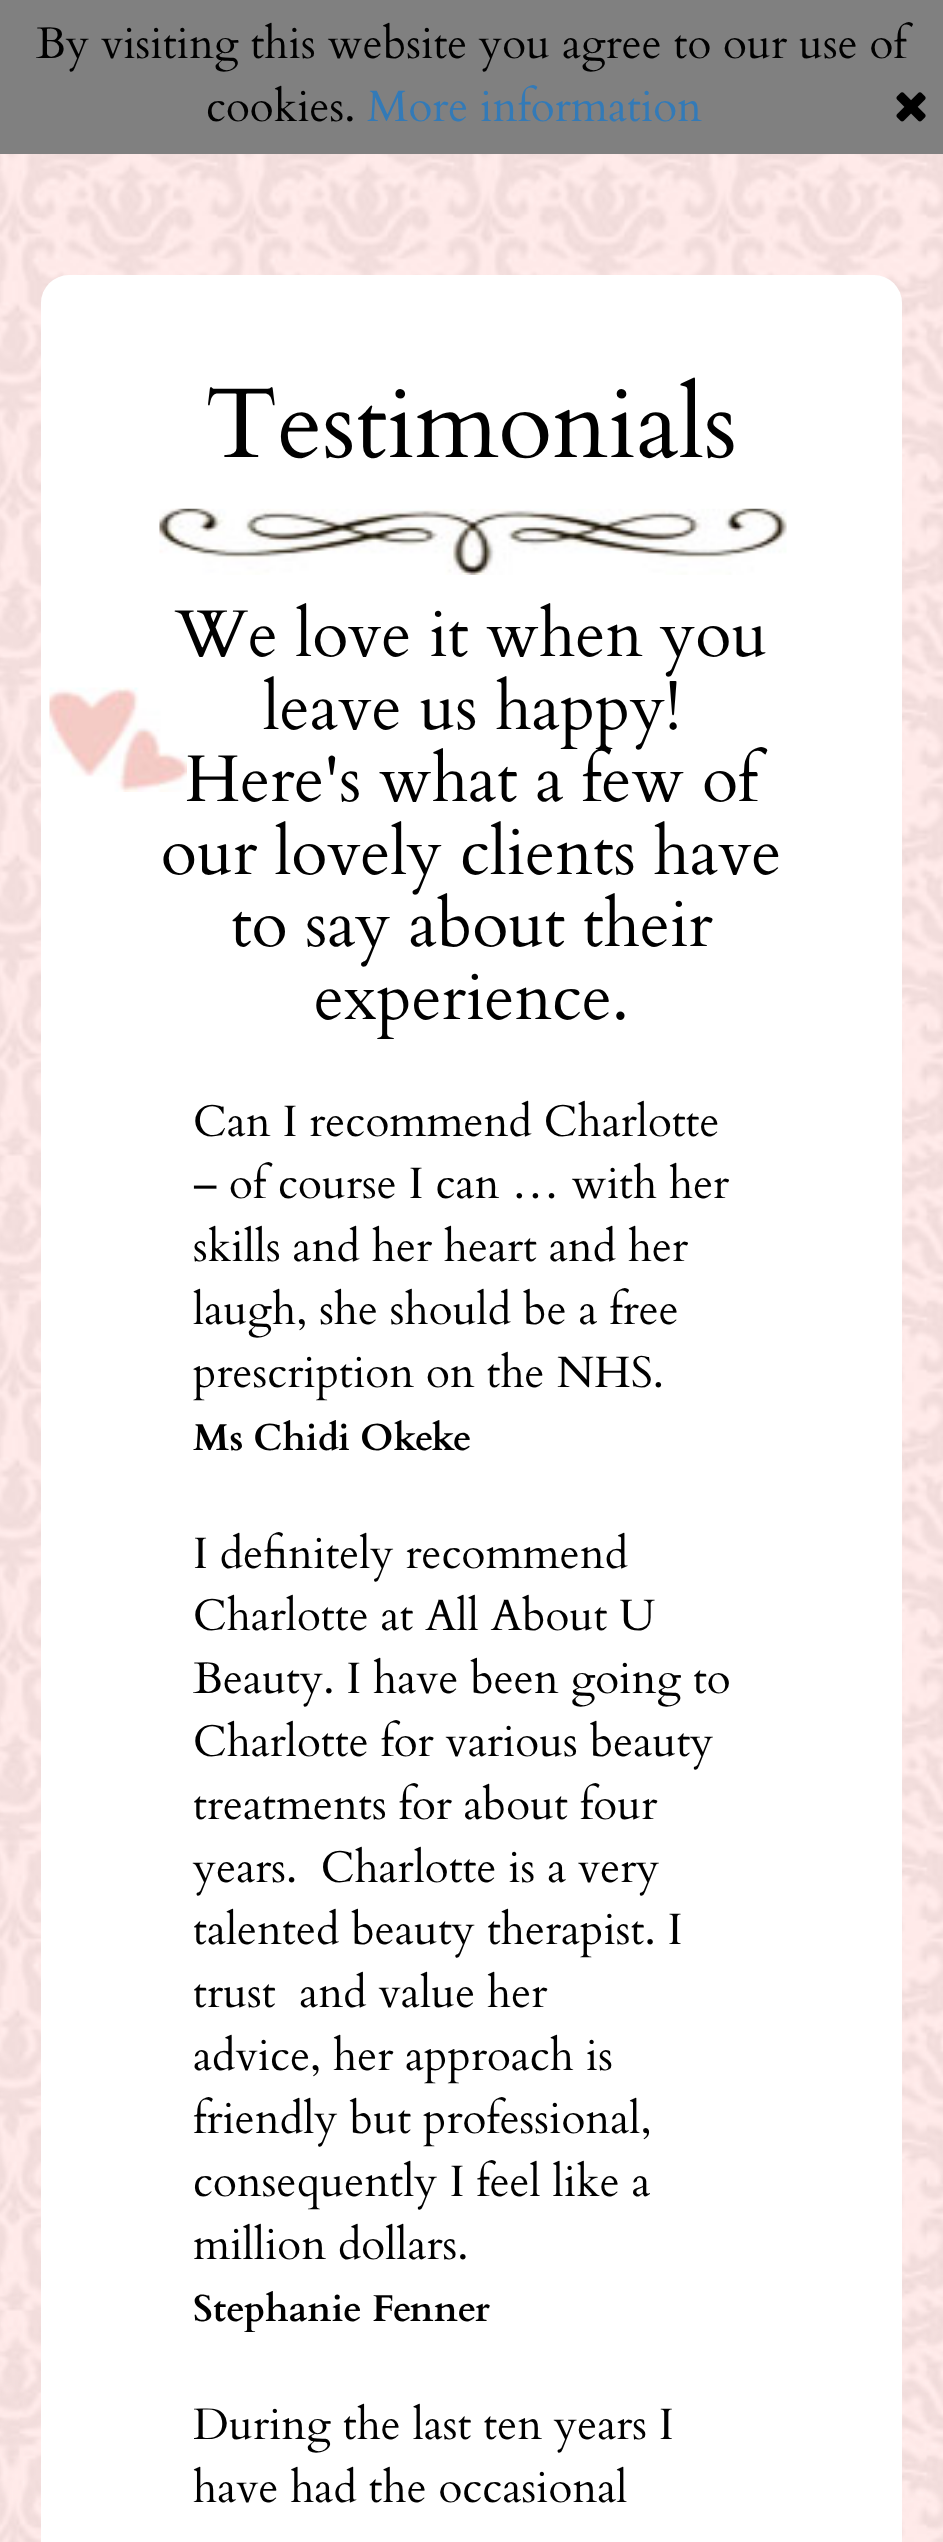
<svg xmlns="http://www.w3.org/2000/svg" width="943" height="2542" viewBox="0 0 943 2542">
  <rect width="100%" height="100%" fill="rgb(255,255,255)"/>
  <image x="0" y="154" width="943" height="2388" href="pic1.png"/>
  <rect x="0" y="0" width="943" height="154" fill="rgb(128,128,128)"/>
  <g font-family="Cardo" font-size="44" fill="rgb(0,0,0)">
    <text x="36" y="58">By visiting this website you agree to our use of</text>
    <text x="206" y="121">cookies.</text>
  </g>
  <text x="367" y="121" font-family="Cardo" font-size="44" fill="rgb(51,122,183)">More information</text>
  <image x="896" y="92" width="30" height="30" href="pic2.png"/>
  <rect x="41" y="275" width="861" height="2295" rx="28" fill="rgb(255,255,255)"/>
  <text x="205" y="457" font-family="Cardo" font-size="99" fill="rgb(0,0,0)">Testimonials</text>
  <image x="159" y="508" width="628" height="67" href="pic3.png"/>
  <image x="49" y="687" width="138" height="105" href="pic4.png"/>
  <g font-family="Cardo" font-size="66" fill="rgb(0,0,0)">
    <text x="175" y="656">We love it when you</text>
    <text x="263" y="729">leave us happy!</text>
    <text x="185" y="801">Here's what a few of</text>
    <text x="161" y="874">our lovely clients have</text>
    <text x="231" y="946">to say about their</text>
    <text x="314" y="1019">experience.</text>
  </g>
  <g font-family="Cardo" font-size="44" fill="rgb(0,0,0)">
    <text>
      <tspan x="193" y="1136">Can I recommend Charlotte</tspan>
      <tspan x="193" y="1198">– of course I can … with her</tspan>
      <tspan x="193" y="1261">skills and her heart and her</tspan>
      <tspan x="193" y="1324">laugh, she should be a free</tspan>
      <tspan x="193" y="1387">prescription on the NHS.</tspan>
    </text>
  </g>
  <text x="193" y="1450" font-family="Cardo" font-size="37.5" font-weight="bold" fill="rgb(0,0,0)">Ms Chidi Okeke</text>
  <g font-family="Cardo" font-size="44" fill="rgb(0,0,0)">
    <text xml:space="preserve"><tspan x="193" y="1568">I definitely recommend</tspan><tspan x="193" y="1630">Charlotte at All About U</tspan><tspan x="193" y="1693">Beauty. I have been going to</tspan><tspan x="193" y="1756">Charlotte for various beauty</tspan><tspan x="193" y="1819">treatments for about four</tspan><tspan x="193" y="1882">years.  Charlotte is a very</tspan><tspan x="193" y="1944">talented beauty therapist. I</tspan><tspan x="193" y="2007">trust  and value her</tspan><tspan x="193" y="2070">advice, her approach is</tspan><tspan x="193" y="2133">friendly but professional,</tspan><tspan x="193" y="2196">consequently I feel like a</tspan><tspan x="193" y="2259">million dollars.</tspan></text>
  </g>
  <text x="193" y="2321" font-family="Cardo" font-size="37.5" font-weight="bold" fill="rgb(0,0,0)">Stephanie Fenner</text>
  <g font-family="Cardo" font-size="44" fill="rgb(0,0,0)">
    <text>
      <tspan x="193" y="2439">During the last ten years I</tspan>
      <tspan x="193" y="2502">have had the occasional</tspan>
    </text>
  </g>
</svg>
